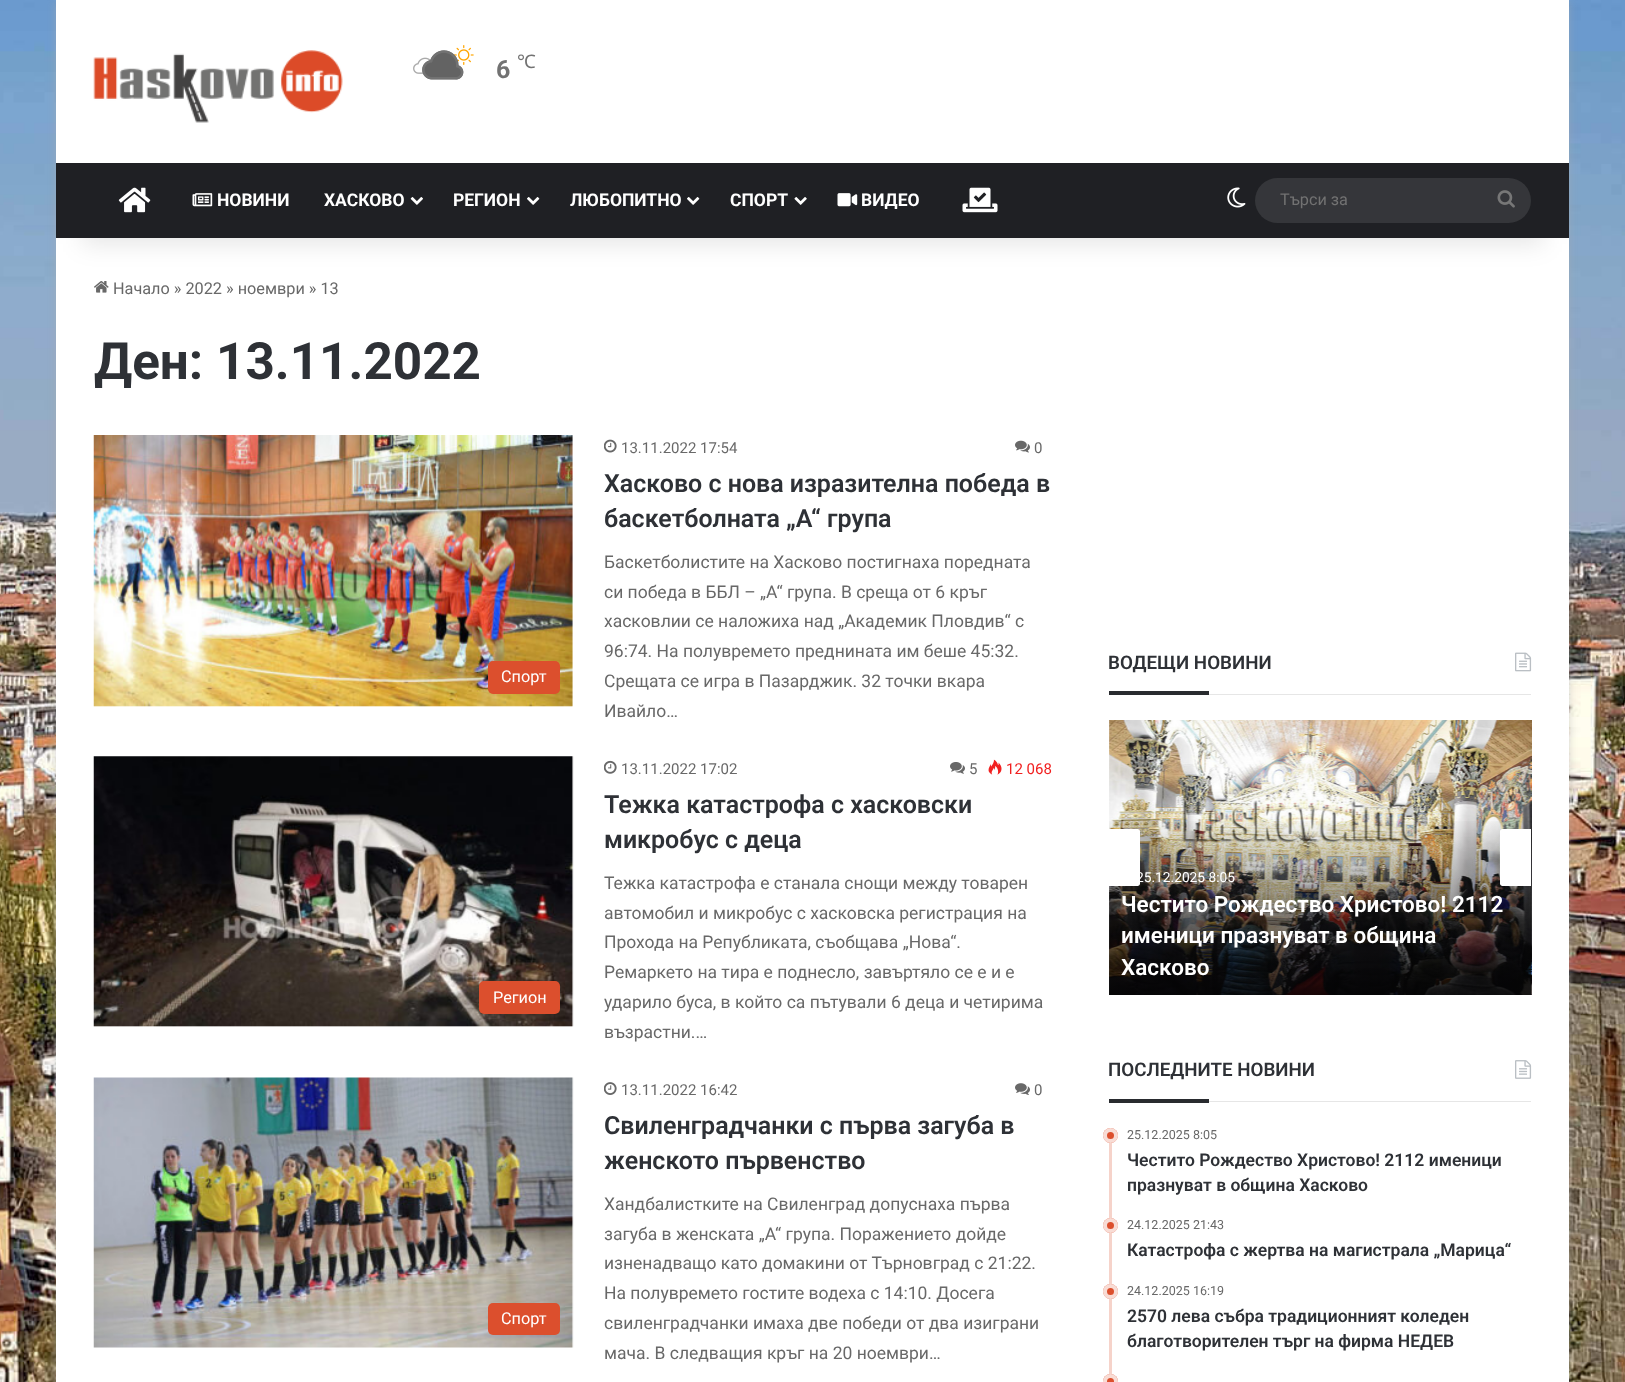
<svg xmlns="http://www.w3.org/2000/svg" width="1625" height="1382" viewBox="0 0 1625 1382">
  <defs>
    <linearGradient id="g1" gradientUnits="userSpaceOnUse" x1="1321" y1="816" x2="1321" y2="995"><stop offset="0" stop-color="rgb(3,3,3)" stop-opacity="0"/><stop offset="1" stop-color="rgb(3,3,3)" stop-opacity="0.75"/></linearGradient>
  </defs>
  <rect width="100%" height="100%" fill="rgb(255,255,255)"/>
  <image x="0" y="0" width="1625" height="1382" href="pic1.png"/>
  <rect x="56" y="1" width="1513" height="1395" fill="rgba(171,171,171,0.5)" filter="blur(4.5px)"/>
  <rect x="56" y="238" width="1513" height="1144" fill="rgb(255,255,255)"/>
  <image x="94" y="281" width="15" height="12" href="pic16.png"/>
  <rect x="81" y="56" width="1463" height="188" fill="rgba(0,0,0,0.1)" filter="blur(12.5px)"/>
  <rect x="56" y="0" width="1513" height="163" fill="rgb(255,255,255)"/>
  <image x="93" y="50" width="250" height="73" href="pic2.png"/>
  <image x="453" y="45" width="21" height="20" href="pic3.png"/>
  <image x="413" y="57" width="18" height="17" href="pic6.png"/>
  <image x="422" y="50" width="42" height="30" href="pic4.png"/>
  <image x="422" y="50" width="42" height="30" href="pic5.png"/>
  <text x="496" y="78" font-family="Roboto" font-size="25" font-weight="bold" fill="rgb(114,114,114)">6</text>
  <text x="517" y="68" font-family="Noto Sans" font-size="18.75" fill="rgb(114,114,114)">℃</text>
  <rect x="56" y="163" width="1513" height="75" fill="rgb(31,32,36)"/>
  <image x="118" y="187" width="33" height="26" href="pic7.png"/>
  <image x="192" y="193" width="21" height="14" href="pic8.png"/>
  <g font-family="Roboto" font-size="17.5" font-weight="bold" fill="rgb(255,255,255)">
    <text x="217" y="206">НОВИНИ</text>
    <text x="324" y="206">ХАСКОВО</text>
  </g>
  <image x="410" y="197" width="13" height="8" href="pic9.png"/>
  <text x="453" y="206" font-family="Roboto" font-size="17.5" font-weight="bold" fill="rgb(255,255,255)">РЕГИОН</text>
  <image x="527" y="197" width="13" height="8" href="pic10.png"/>
  <text x="570" y="206" font-family="Roboto" font-size="17.5" font-weight="bold" fill="rgb(255,255,255)">ЛЮБОПИТНО</text>
  <image x="687" y="197" width="13" height="8" href="pic10.png"/>
  <text x="730" y="206" font-family="Roboto" font-size="17.5" font-weight="bold" fill="rgb(255,255,255)">СПОРТ</text>
  <image x="794" y="197" width="13" height="8" href="pic11.png"/>
  <image x="837" y="193" width="21" height="14" href="pic12.png"/>
  <text x="861" y="206" font-family="Roboto" font-size="17.5" font-weight="bold" fill="rgb(255,255,255)">ВИДЕО</text>
  <image x="962" y="187" width="36" height="26" href="pic13.png"/>
  <image x="1227" y="187" width="19" height="21" href="pic14.png"/>
  <rect x="1255" y="178" width="276" height="45" rx="22.5" fill="rgb(53,54,58)"/>
  <text x="1280" y="205" font-family="Roboto" font-size="16.25" fill="rgb(114,114,114)">Търси за</text>
  <image x="1497" y="190" width="18" height="18" href="pic15.png"/>
  <text x="113" y="294" font-family="Roboto" font-size="16.25" fill="rgb(104,104,104)">Начало » 2022 » ноември » 13</text>
  <text x="94" y="379" font-family="Roboto" font-size="51.25" font-weight="bold" fill="rgb(46,49,54)">Ден: 13.11.2022</text>
  <image x="93" y="435" width="480" height="272" href="pic17.png"/>
  <rect x="488" y="661" width="72" height="33" rx="5" fill="rgb(220,79,45)"/>
  <text x="501" y="682" font-family="Roboto" font-size="16.25" fill="rgb(255,255,255)">Спорт</text>
  <image x="604" y="439" width="13" height="14" href="pic18.png"/>
  <text x="621" y="453" font-family="Roboto" font-size="15" fill="rgb(104,104,104)">13.11.2022 17:54</text>
  <image x="1015" y="440" width="15" height="13" href="pic19.png"/>
  <text x="1034" y="453" font-family="Roboto" font-size="15" fill="rgb(104,104,104)">0</text>
  <g font-family="Roboto" font-size="25" font-weight="600" fill="rgb(46,49,54)">
    <text>
      <tspan x="604" y="492">Хасково с нова изразителна победа в</tspan>
      <tspan x="604" y="527">баскетболната „А“ група</tspan>
    </text>
  </g>
  <g font-family="Roboto" font-size="17.5" fill="rgb(104,104,104)">
    <text>
      <tspan x="604" y="568">Баскетболистите на Хасково постигнаха поредната</tspan>
      <tspan x="604" y="598">си победа в ББЛ – „А“ група. В среща от 6 кръг</tspan>
      <tspan x="604" y="627">хасковлии се наложиха над „Академик Пловдив“ с</tspan>
      <tspan x="604" y="657">96:74. На полувремето преднината им беше 45:32.</tspan>
      <tspan x="604" y="687">Срещата се игра в Пазарджик. 32 точки вкара</tspan>
      <tspan x="604" y="717">Ивайло…</tspan>
    </text>
  </g>
  <image x="93" y="756" width="481" height="271" href="pic20.png"/>
  <rect x="479" y="981" width="81" height="33" rx="5" fill="rgb(220,79,45)"/>
  <text x="493" y="1003" font-family="Roboto" font-size="16.25" fill="rgb(255,255,255)">Регион</text>
  <image x="604" y="760" width="13" height="14" href="pic21.png"/>
  <text x="621" y="774" font-family="Roboto" font-size="15" fill="rgb(104,104,104)">13.11.2022 17:02</text>
  <image x="950" y="762" width="15" height="12" href="pic22.png"/>
  <text x="969" y="774" font-family="Roboto" font-size="15" fill="rgb(104,104,104)">5</text>
  <image x="988" y="759" width="14" height="16" href="pic23.png"/>
  <text x="1006" y="774" font-family="Roboto" font-size="15" fill="rgb(241,32,32)">12 068</text>
  <g font-family="Roboto" font-size="25" font-weight="600" fill="rgb(46,49,54)">
    <text>
      <tspan x="604" y="813">Тежка катастрофа с хасковски</tspan>
      <tspan x="604" y="848">микробус с деца</tspan>
    </text>
  </g>
  <g font-family="Roboto" font-size="17.5" fill="rgb(104,104,104)">
    <text>
      <tspan x="604" y="889">Тежка катастрофа е станала снощи между товарен</tspan>
      <tspan x="604" y="919">автомобил и микробус с хасковска регистрация на</tspan>
      <tspan x="604" y="948">Прохода на Републиката, съобщава „Нова“.</tspan>
      <tspan x="604" y="978">Ремаркето на тира е поднесло, завъртяло се е и е</tspan>
      <tspan x="604" y="1008">ударило буса, в който са пътували 6 деца и четирима</tspan>
      <tspan x="604" y="1038">възрастни.…</tspan>
    </text>
  </g>
  <image x="93" y="1077" width="481" height="271" href="pic24.png"/>
  <rect x="488" y="1303" width="72" height="32" rx="5" fill="rgb(220,79,45)"/>
  <text x="501" y="1324" font-family="Roboto" font-size="16.25" fill="rgb(255,255,255)">Спорт</text>
  <image x="604" y="1082" width="13" height="13" href="pic25.png"/>
  <text x="621" y="1095" font-family="Roboto" font-size="15" fill="rgb(104,104,104)">13.11.2022 16:42</text>
  <image x="1015" y="1083" width="15" height="12" href="pic26.png"/>
  <text x="1034" y="1095" font-family="Roboto" font-size="15" fill="rgb(104,104,104)">0</text>
  <g font-family="Roboto" font-size="25" font-weight="600" fill="rgb(46,49,54)">
    <text>
      <tspan x="604" y="1134">Свиленградчанки с първа загуба в</tspan>
      <tspan x="604" y="1169">женското първенство</tspan>
    </text>
  </g>
  <g font-family="Roboto" font-size="17.5" fill="rgb(104,104,104)">
    <text>
      <tspan x="604" y="1210">Хандбалистките на Свиленград допуснаха първа</tspan>
      <tspan x="604" y="1240">загуба в женската „А“ група. Поражението дойде</tspan>
      <tspan x="604" y="1269">изненадващо като домакини от Търновград с 21:22.</tspan>
      <tspan x="604" y="1299">На полувремето гостите водеха с 14:10. Досега</tspan>
      <tspan x="604" y="1329">свиленградчанки имаха две победи от два изиграни</tspan>
      <tspan x="604" y="1359">мача. В следващия кръг на 20 ноември…</tspan>
    </text>
  </g>
  <rect x="1209" y="694" width="322" height="1" fill="rgb(230,230,230)"/>
  <text x="1108" y="669" font-family="Roboto" font-size="18.75" font-weight="600" fill="rgb(46,49,54)">ВОДЕЩИ НОВИНИ</text>
  <image x="1515" y="652" width="17" height="20" href="pic27.png"/>
  <rect x="1109" y="691" width="100" height="4" fill="rgb(41,43,47)"/>
  <image x="1109" y="720" width="423" height="275" href="pic28.png"/>
  <rect x="1109" y="821" width="422" height="174" fill="url(#g1)"/>
  <path d="M1109 829H1137.5C1139 829 1140 830 1140 831.5V883.5C1140 885 1139 886 1137.5 886H1109Z" fill="rgb(255,255,255)"/>
  <path d="M1502.5 829H1531V886H1502.5C1501 886 1500 885 1500 883.5V831.5C1500 830 1501 829 1502.5 829Z" fill="rgb(255,255,255)"/>
  <text x="1136" y="882" font-family="Roboto" font-size="13.75" fill="rgb(255,255,255)">25.12.2025 8:05</text>
  <g font-family="Roboto" font-size="22.5" font-weight="600" fill="rgb(255,255,255)">
    <text>
      <tspan x="1121" y="912">Честито Рождество Христово! 2112</tspan>
      <tspan x="1121" y="943">именици празнуват в община</tspan>
      <tspan x="1121" y="975">Хасково</tspan>
    </text>
  </g>
  <rect x="1209" y="1101" width="322" height="1" fill="rgb(230,230,230)"/>
  <text x="1108" y="1076" font-family="Roboto" font-size="18.75" font-weight="600" fill="rgb(46,49,54)">ПОСЛЕДНИТЕ НОВИНИ</text>
  <image x="1515" y="1060" width="17" height="19" href="pic29.png"/>
  <rect x="1109" y="1099" width="100" height="4" fill="rgb(41,43,47)"/>
  <rect x="1109" y="1128" width="3" height="254" fill="rgb(246,211,202)"/>
  <circle cx="1110.5" cy="1135.5" r="7.5" fill="rgb(220,79,45)"/>
  <circle cx="1110.5" cy="1135.5" r="5.5" fill="none" stroke="rgba(255,255,255,0.8)" stroke-width="4"/>
  <text x="1127" y="1139" font-family="Roboto" font-size="12.5" fill="rgb(104,104,104)">25.12.2025 8:05</text>
  <g font-family="Roboto" font-size="17.5" font-weight="600" fill="rgb(46,49,54)">
    <text>
      <tspan x="1127" y="1166">Честито Рождество Христово! 2112 именици</tspan>
      <tspan x="1127" y="1191">празнуват в община Хасково</tspan>
    </text>
  </g>
  <circle cx="1110.5" cy="1225.5" r="7.5" fill="rgb(220,79,45)"/>
  <circle cx="1110.5" cy="1225.5" r="5.5" fill="none" stroke="rgba(255,255,255,0.8)" stroke-width="4"/>
  <text x="1127" y="1229" font-family="Roboto" font-size="12.5" fill="rgb(104,104,104)">24.12.2025 21:43</text>
  <text x="1127" y="1256" font-family="Roboto" font-size="17.5" font-weight="600" fill="rgb(46,49,54)">Катастрофа с жертва на магистрала „Марица“</text>
  <circle cx="1110.5" cy="1291.5" r="7.5" fill="rgb(220,79,45)"/>
  <circle cx="1110.5" cy="1291.5" r="5.5" fill="none" stroke="rgba(255,255,255,0.8)" stroke-width="4"/>
  <text x="1127" y="1295" font-family="Roboto" font-size="12.5" fill="rgb(104,104,104)">24.12.2025 16:19</text>
  <g font-family="Roboto" font-size="17.5" font-weight="600" fill="rgb(46,49,54)">
    <text>
      <tspan x="1127" y="1322">2570 лева събра традиционният коледен</tspan>
      <tspan x="1127" y="1347">благотворителен търг на фирма НЕДЕВ</tspan>
    </text>
  </g>
  <circle cx="1110.5" cy="1381.5" r="7.5" fill="rgb(220,79,45)"/>
  <circle cx="1110.5" cy="1381.5" r="5.5" fill="none" stroke="rgba(255,255,255,0.8)" stroke-width="4"/>
</svg>
